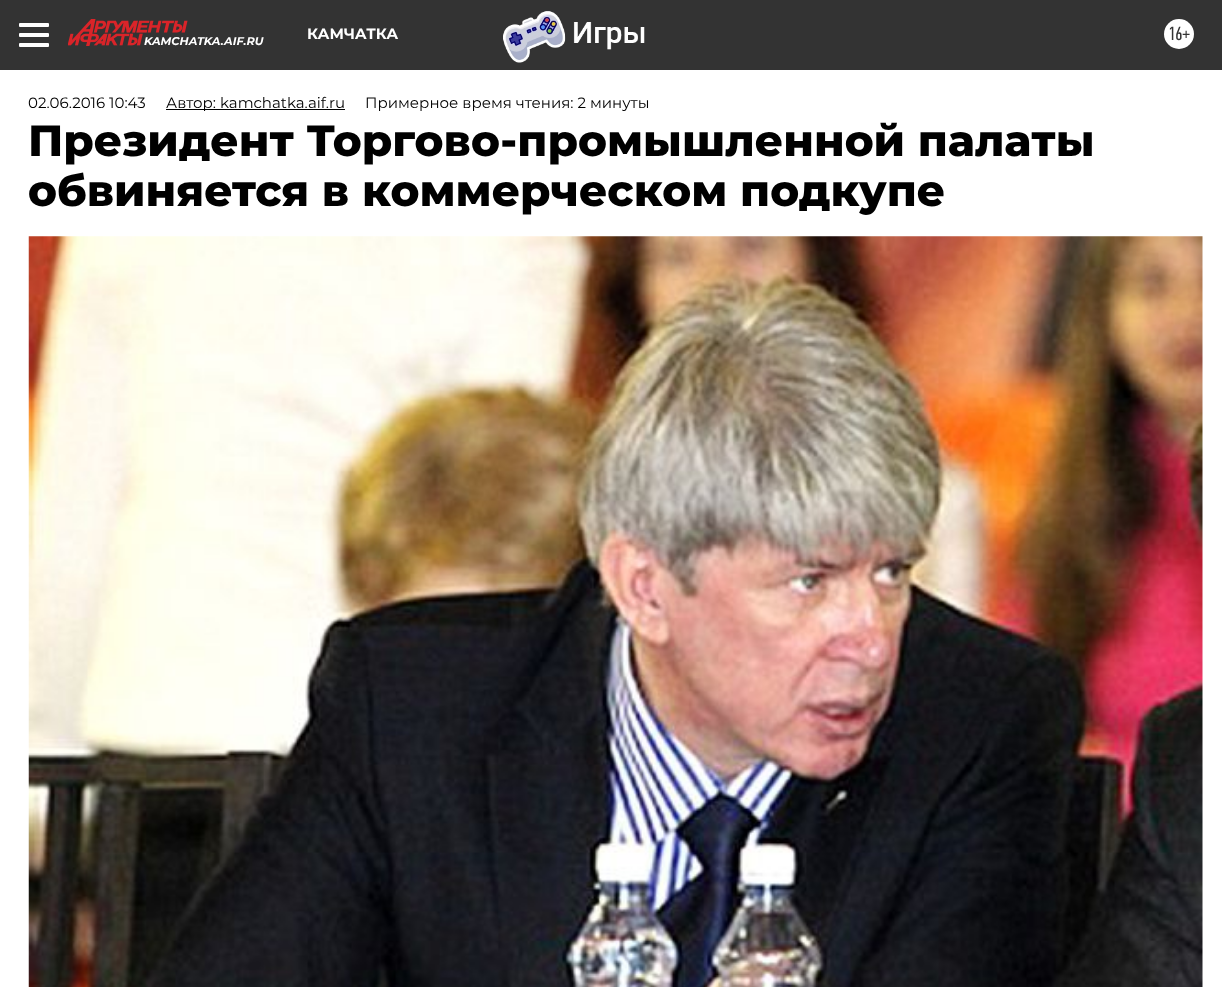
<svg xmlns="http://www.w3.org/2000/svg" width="1222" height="987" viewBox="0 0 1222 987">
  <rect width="100%" height="100%" fill="rgb(255,255,255)"/>
  <rect x="0" y="0" width="1222" height="70" fill="rgb(51,51,51)"/>
  <rect x="19" y="23" width="30" height="4" rx="1" fill="rgb(255,255,255)"/>
  <rect x="19" y="33" width="30" height="4" rx="1" fill="rgb(255,255,255)"/>
  <rect x="19" y="43" width="30" height="4" rx="1" fill="rgb(255,255,255)"/>
  <text x="307" y="39" font-family="Montserrat" font-size="15" font-weight="bold" fill="rgb(255,255,255)">КАМЧАТКА</text>
  <image x="503" y="11" width="142" height="52" href="pic1.png"/>
  <circle cx="1179" cy="34" r="15" fill="rgb(255,255,255)"/>
  <text x="1168" y="40" font-family="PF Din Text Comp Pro" font-size="19" fill="rgb(51,51,51)">16+</text>
  <image x="68" y="19" width="120" height="27" href="pic2.png"/>
  <text x="144" y="45" font-family="Montserrat" font-size="11.25" font-weight="bold" font-style="italic" fill="rgb(255,255,255)">KAMCHATKA.AIF.RU</text>
  <text x="28" y="108" font-family="Montserrat" font-size="15" fill="rgb(0,0,0)">02.06.2016 10:43</text>
  <rect x="166" y="109" width="179" height="1" fill="rgb(0,0,0)"/>
  <g font-family="Montserrat" font-size="15" fill="rgb(0,0,0)">
    <text x="166" y="108">Автор: kamchatka.aif.ru</text>
    <text x="365" y="108">Примерное время чтения: 2 минуты</text>
  </g>
  <g font-family="Montserrat" font-size="43.75" font-weight="800" fill="rgb(0,0,0)">
    <text>
      <tspan x="28" y="156">Президент Торгово-промышленной палаты</tspan>
      <tspan x="28" y="206">обвиняется в коммерческом подкупе</tspan>
    </text>
  </g>
  <image x="28" y="236" width="1175" height="751" href="pic3.png"/>
</svg>
